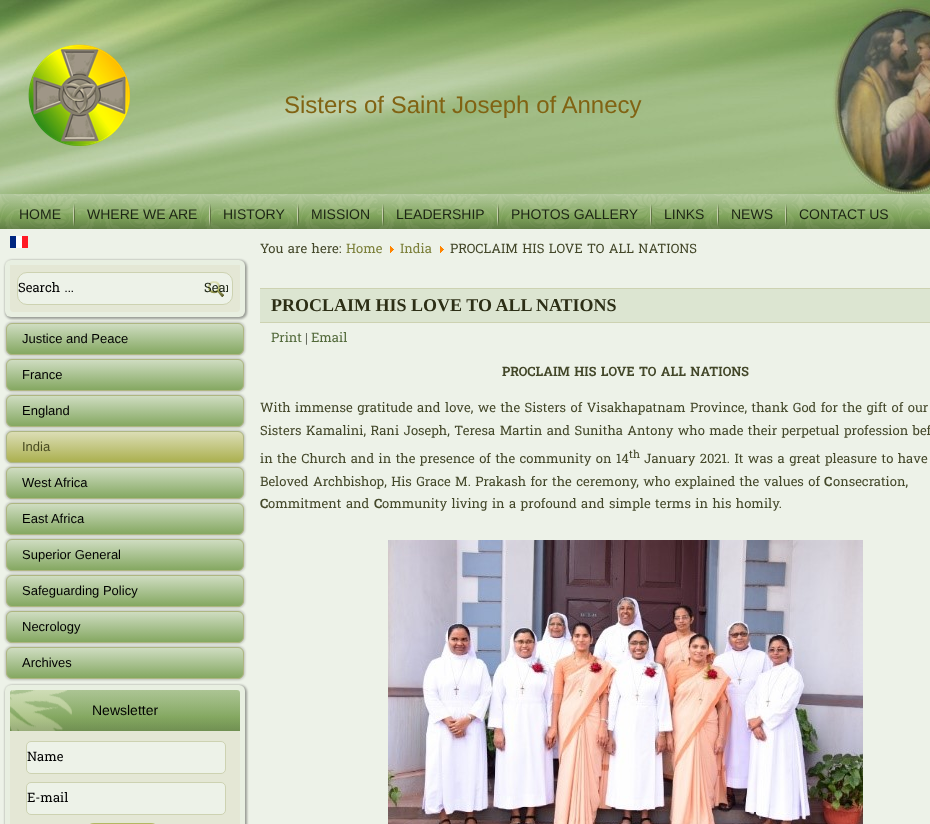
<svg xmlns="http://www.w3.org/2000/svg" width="930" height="824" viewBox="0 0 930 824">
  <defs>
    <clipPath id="clip1"><rect x="204" y="272" width="24" height="33" rx="6"/></clipPath>
    <linearGradient id="g1" gradientUnits="userSpaceOnUse" x1="125" y1="323" x2="125" y2="355"><stop offset="0" stop-color="rgb(209,222,196)"/><stop offset="1" stop-color="rgb(130,166,94)"/></linearGradient>
    <linearGradient id="g2" gradientUnits="userSpaceOnUse" x1="125" y1="359" x2="125" y2="391"><stop offset="0" stop-color="rgb(209,222,196)"/><stop offset="1" stop-color="rgb(130,166,94)"/></linearGradient>
    <linearGradient id="g3" gradientUnits="userSpaceOnUse" x1="125" y1="395" x2="125" y2="427"><stop offset="0" stop-color="rgb(209,222,196)"/><stop offset="1" stop-color="rgb(130,166,94)"/></linearGradient>
    <linearGradient id="g4" gradientUnits="userSpaceOnUse" x1="125" y1="431" x2="125" y2="463"><stop offset="0" stop-color="rgb(221,223,185)"/><stop offset="0.97" stop-color="rgb(171,176,79)"/><stop offset="1" stop-color="rgb(168,172,77)"/></linearGradient>
    <linearGradient id="g5" gradientUnits="userSpaceOnUse" x1="125" y1="467" x2="125" y2="499"><stop offset="0" stop-color="rgb(209,222,196)"/><stop offset="1" stop-color="rgb(130,166,94)"/></linearGradient>
    <linearGradient id="g6" gradientUnits="userSpaceOnUse" x1="125" y1="503" x2="125" y2="535"><stop offset="0" stop-color="rgb(209,222,196)"/><stop offset="1" stop-color="rgb(130,166,94)"/></linearGradient>
    <linearGradient id="g7" gradientUnits="userSpaceOnUse" x1="125" y1="539" x2="125" y2="571"><stop offset="0" stop-color="rgb(209,222,196)"/><stop offset="1" stop-color="rgb(130,166,94)"/></linearGradient>
    <linearGradient id="g8" gradientUnits="userSpaceOnUse" x1="125" y1="575" x2="125" y2="607"><stop offset="0" stop-color="rgb(209,222,196)"/><stop offset="1" stop-color="rgb(130,166,94)"/></linearGradient>
    <linearGradient id="g9" gradientUnits="userSpaceOnUse" x1="125" y1="611" x2="125" y2="643"><stop offset="0" stop-color="rgb(209,222,196)"/><stop offset="1" stop-color="rgb(130,166,94)"/></linearGradient>
    <linearGradient id="g10" gradientUnits="userSpaceOnUse" x1="125" y1="647" x2="125" y2="679"><stop offset="0" stop-color="rgb(209,222,196)"/><stop offset="1" stop-color="rgb(130,166,94)"/></linearGradient>
    <linearGradient id="g11" gradientUnits="userSpaceOnUse" x1="123" y1="823" x2="123" y2="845"><stop offset="0" stop-color="rgb(179,184,97)"/><stop offset="0.4" stop-color="rgb(183,187,104)"/><stop offset="0.7" stop-color="rgb(183,187,104)"/><stop offset="0.82" stop-color="rgb(171,176,79)"/><stop offset="1" stop-color="rgb(133,137,62)"/></linearGradient>
  </defs>
  <rect width="100%" height="100%" fill="rgb(255,255,255)"/>
  <image x="0" y="0" width="930" height="194" href="pic1.png"/>
  <text x="284" y="113" font-family="Liberation Sans" font-size="24" fill="rgb(129,99,19)">Sisters of Saint Joseph of Annecy</text>
  <image x="0" y="194" width="930" height="35" href="pic2.png"/>
  <text x="19" y="219" font-family="Liberation Sans" font-size="14" fill="rgb(28,36,20)">HOME</text>
  <image x="73" y="204" width="2" height="22" href="pic3.png"/>
  <text x="87" y="219" font-family="Liberation Sans" font-size="14" fill="rgb(28,36,20)">WHERE WE ARE</text>
  <image x="209" y="204" width="2" height="22" href="pic4.png"/>
  <text x="223" y="219" font-family="Liberation Sans" font-size="14" fill="rgb(28,36,20)">HISTORY</text>
  <image x="297" y="204" width="2" height="22" href="pic5.png"/>
  <text x="311" y="219" font-family="Liberation Sans" font-size="14" fill="rgb(28,36,20)">MISSION</text>
  <image x="382" y="204" width="2" height="22" href="pic6.png"/>
  <text x="396" y="219" font-family="Liberation Sans" font-size="14" fill="rgb(28,36,20)">LEADERSHIP</text>
  <image x="497" y="204" width="2" height="22" href="pic5.png"/>
  <text x="511" y="219" font-family="Liberation Sans" font-size="14" fill="rgb(28,36,20)">PHOTOS GALLERY</text>
  <image x="650" y="204" width="2" height="22" href="pic7.png"/>
  <text x="664" y="219" font-family="Liberation Sans" font-size="14" fill="rgb(28,36,20)">LINKS</text>
  <image x="717" y="204" width="2" height="22" href="pic8.png"/>
  <text x="731" y="219" font-family="Liberation Sans" font-size="14" fill="rgb(28,36,20)">NEWS</text>
  <image x="785" y="204" width="2" height="22" href="pic9.png"/>
  <text x="799" y="219" font-family="Liberation Sans" font-size="14" fill="rgb(28,36,20)">CONTACT US</text>
  <rect x="0" y="229" width="930" height="595" fill="rgb(237,242,232)"/>
  <image x="10" y="236" width="18" height="12" href="pic10.png"/>
  <rect x="5" y="260" width="242" height="59" rx="7" fill="rgba(0,0,0,0.35)" filter="blur(1px)"/>
  <rect x="5" y="260" width="240" height="57" rx="6" fill="rgb(232,239,225)"/>
  <path d="M10 265H240V309C240 310.5 238.5 312 237 312H13C11.5 312 10 310.5 10 309Z" fill="rgb(228,231,213)"/>
  <rect x="17.5" y="272.5" width="215" height="32" rx="9.5" fill="rgb(237,242,232)" stroke="rgb(205,210,177)"/>
  <text x="18" y="292" font-family="Hanuman" font-size="13" fill="rgb(0,0,0)">Search ...</text>
  <image x="208" y="281" width="16" height="16" href="pic11.png"/>
  <g clip-path="url(#clip1)">
    <text x="204" y="292" font-family="Hanuman" font-size="13" fill="rgb(28,36,20)">Sear</text>
  </g>
  <rect x="5" y="322" width="240" height="34" rx="7" fill="rgba(0,0,0,0.2)" filter="blur(1px)"/>
  <rect x="6.5" y="323.5" width="237" height="31" rx="5.5" fill="url(#g1)" stroke="rgb(174,182,129)"/>
  <text x="22" y="343" font-family="Liberation Sans" font-size="13" fill="rgb(0,0,0)">Justice and Peace</text>
  <rect x="5" y="358" width="240" height="34" rx="7" fill="rgba(0,0,0,0.2)" filter="blur(1px)"/>
  <rect x="6.5" y="359.5" width="237" height="31" rx="5.5" fill="url(#g2)" stroke="rgb(174,182,129)"/>
  <text x="22" y="379" font-family="Liberation Sans" font-size="13" fill="rgb(0,0,0)">France</text>
  <rect x="5" y="394" width="240" height="34" rx="7" fill="rgba(0,0,0,0.2)" filter="blur(1px)"/>
  <rect x="6.5" y="395.5" width="237" height="31" rx="5.5" fill="url(#g3)" stroke="rgb(174,182,129)"/>
  <text x="22" y="415" font-family="Liberation Sans" font-size="13" fill="rgb(0,0,0)">England</text>
  <rect x="5" y="430" width="240" height="34" rx="7" fill="rgba(0,0,0,0.2)" filter="blur(1px)"/>
  <rect x="6.5" y="431.5" width="237" height="31" rx="5.5" fill="url(#g4)" stroke="rgb(174,182,129)"/>
  <text x="22" y="451" font-family="Liberation Sans" font-size="13" fill="rgb(72,74,33)">India</text>
  <rect x="5" y="466" width="240" height="34" rx="7" fill="rgba(0,0,0,0.2)" filter="blur(1px)"/>
  <rect x="6.5" y="467.5" width="237" height="31" rx="5.5" fill="url(#g5)" stroke="rgb(174,182,129)"/>
  <text x="22" y="487" font-family="Liberation Sans" font-size="13" fill="rgb(0,0,0)">West Africa</text>
  <rect x="5" y="502" width="240" height="34" rx="7" fill="rgba(0,0,0,0.2)" filter="blur(1px)"/>
  <rect x="6.5" y="503.5" width="237" height="31" rx="5.5" fill="url(#g6)" stroke="rgb(174,182,129)"/>
  <text x="22" y="523" font-family="Liberation Sans" font-size="13" fill="rgb(0,0,0)">East Africa</text>
  <rect x="5" y="538" width="240" height="34" rx="7" fill="rgba(0,0,0,0.2)" filter="blur(1px)"/>
  <rect x="6.5" y="539.5" width="237" height="31" rx="5.5" fill="url(#g7)" stroke="rgb(174,182,129)"/>
  <text x="22" y="559" font-family="Liberation Sans" font-size="13" fill="rgb(0,0,0)">Superior General</text>
  <rect x="5" y="574" width="240" height="34" rx="7" fill="rgba(0,0,0,0.2)" filter="blur(1px)"/>
  <rect x="6.5" y="575.5" width="237" height="31" rx="5.5" fill="url(#g8)" stroke="rgb(174,182,129)"/>
  <text x="22" y="595" font-family="Liberation Sans" font-size="13" fill="rgb(0,0,0)">Safeguarding Policy</text>
  <rect x="5" y="610" width="240" height="34" rx="7" fill="rgba(0,0,0,0.2)" filter="blur(1px)"/>
  <rect x="6.5" y="611.5" width="237" height="31" rx="5.5" fill="url(#g9)" stroke="rgb(174,182,129)"/>
  <text x="22" y="631" font-family="Liberation Sans" font-size="13" fill="rgb(0,0,0)">Necrology</text>
  <rect x="5" y="646" width="240" height="34" rx="7" fill="rgba(0,0,0,0.2)" filter="blur(1px)"/>
  <rect x="6.5" y="647.5" width="237" height="31" rx="5.5" fill="url(#g10)" stroke="rgb(174,182,129)"/>
  <text x="22" y="667" font-family="Liberation Sans" font-size="13" fill="rgb(0,0,0)">Archives</text>
  <rect x="5" y="685" width="242" height="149" rx="7" fill="rgba(0,0,0,0.35)" filter="blur(1px)"/>
  <rect x="5" y="685" width="240" height="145" rx="6" fill="rgb(232,239,225)"/>
  <image x="10" y="690" width="230" height="41" href="pic12.png"/>
  <text x="92" y="715" font-family="Liberation Sans" font-size="14" fill="rgb(0,0,0)">Newsletter</text>
  <rect x="10" y="731" width="230" height="93" fill="rgb(228,231,213)"/>
  <rect x="26.5" y="741.5" width="199" height="32" rx="4.5" fill="rgb(237,242,232)" stroke="rgb(205,210,177)"/>
  <text x="27" y="761" font-family="Hanuman" font-size="13" fill="rgb(0,0,0)">Name</text>
  <rect x="26.5" y="782.5" width="199" height="32" rx="4.5" fill="rgb(237,242,232)" stroke="rgb(205,210,177)"/>
  <text x="27" y="802" font-family="Hanuman" font-size="13" fill="rgb(0,0,0)">E-mail</text>
  <rect x="88" y="823" width="69" height="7" rx="6" fill="url(#g11)"/>
  <text x="260" y="253" font-family="Hanuman" font-size="13" fill="rgb(67,71,41)">You are here:</text>
  <text x="346" y="253" font-family="Hanuman" font-size="13" fill="rgb(123,127,57)">Home</text>
  <image x="390" y="246" width="4" height="7" href="pic13.png"/>
  <text x="400" y="253" font-family="Hanuman" font-size="13" fill="rgb(123,127,57)">India</text>
  <image x="440" y="246" width="4" height="7" href="pic13.png"/>
  <text x="450" y="253" font-family="Hanuman" font-size="13" fill="rgb(67,71,41)">PROCLAIM HIS LOVE TO ALL NATIONS</text>
  <rect x="260" y="289" width="670" height="33" fill="rgb(220,229,209)"/>
  <rect x="260" y="288" width="670" height="1" fill="rgb(205,210,177)"/>
  <rect x="260" y="322" width="670" height="1" fill="rgb(205,210,177)"/>
  <text x="271" y="311" font-family="Liberation Serif" font-size="18" font-weight="bold" fill="rgb(44,46,21)">PROCLAIM HIS LOVE TO ALL NATIONS</text>
  <text x="271" y="342" font-family="Hanuman" font-size="13" fill="rgb(82,105,58)">Print</text>
  <text x="305" y="342" font-family="Liberation Serif" font-size="13" fill="rgb(21,23,13)">|</text>
  <text x="311" y="342" font-family="Hanuman" font-size="13" fill="rgb(82,105,58)">Email</text>
  <text x="502" y="376" font-family="Hanuman" font-size="13" font-weight="bold" fill="rgb(67,71,41)">PROCLAIM HIS LOVE TO ALL NATIONS</text>
  <g font-family="Hanuman" font-size="13" fill="rgb(67,71,41)">
    <text>
      <tspan x="260" y="412">With immense gratitude and love, we the Sisters of Visakhapatnam Province, thank God for the gift of our</tspan>
      <tspan x="260" y="435">Sisters Kamalini, Rani Joseph, Teresa Martin and Sunitha Antony who made their perpetual profession bef</tspan>
    </text>
    <text x="260" y="463">in the Church and in the presence of the community on 14</text>
  </g>
  <text x="629" y="458" font-family="Hanuman" font-size="11" fill="rgb(67,71,41)">th</text>
  <g font-family="Hanuman" font-size="13" fill="rgb(67,71,41)">
    <text x="644" y="463">January 2021. It was a great pleasure to have</text>
    <text x="260" y="486">Beloved Archbishop, His Grace M. Prakash for the ceremony, who explained the values of</text>
  </g>
  <text x="824" y="486" font-family="Hanuman" font-size="13" font-weight="bold" fill="rgb(67,71,41)">C</text>
  <text x="833" y="486" font-family="Hanuman" font-size="13" fill="rgb(67,71,41)">onsecration,</text>
  <text x="260" y="508" font-family="Hanuman" font-size="13" font-weight="bold" fill="rgb(67,71,41)">C</text>
  <text x="268" y="508" font-family="Hanuman" font-size="13" fill="rgb(67,71,41)">ommitment and</text>
  <text x="374" y="508" font-family="Hanuman" font-size="13" font-weight="bold" fill="rgb(67,71,41)">C</text>
  <text x="382" y="508" font-family="Hanuman" font-size="13" fill="rgb(67,71,41)">ommunity living in a profound and simple terms in his homily.</text>
  <image x="388" y="540" width="475" height="284" href="pic14.png"/>
</svg>
